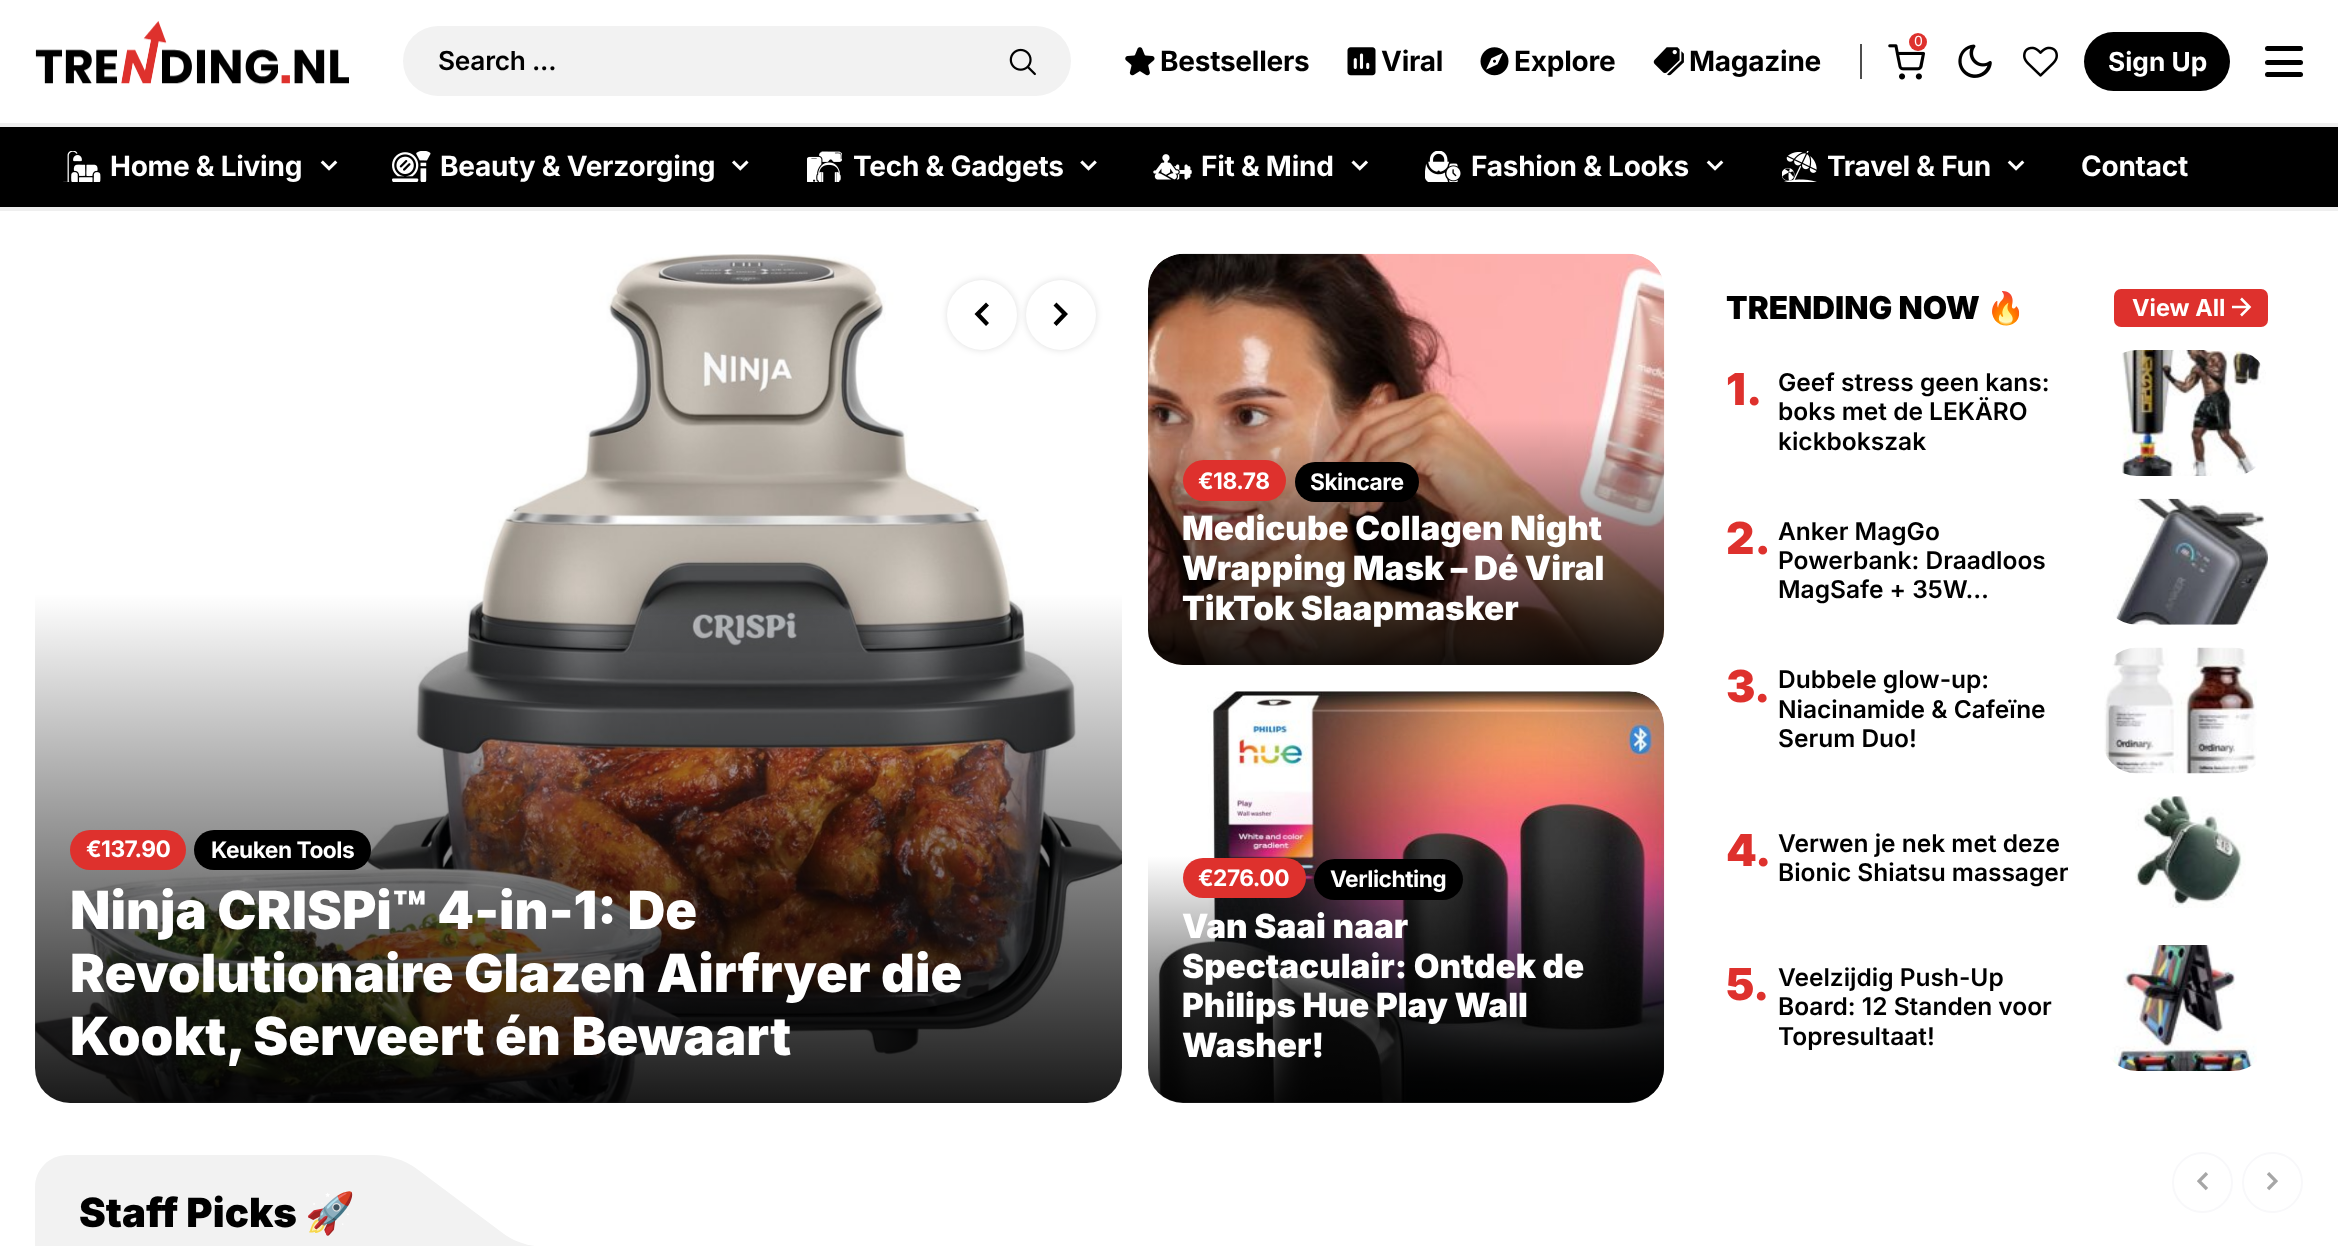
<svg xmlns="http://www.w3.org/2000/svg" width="2338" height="1246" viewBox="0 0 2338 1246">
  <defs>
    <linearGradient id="g1" gradientUnits="userSpaceOnUse" x1="1406" y1="254" x2="1406" y2="665"><stop offset="0.4" stop-color="rgb(0,0,0)" stop-opacity="0"/><stop offset="1" stop-color="rgb(0,0,0)" stop-opacity="0.9"/></linearGradient>
    <linearGradient id="g2" gradientUnits="userSpaceOnUse" x1="578" y1="254" x2="578" y2="1103"><stop offset="0.4" stop-color="rgb(0,0,0)" stop-opacity="0"/><stop offset="1" stop-color="rgb(0,0,0)" stop-opacity="0.9"/></linearGradient>
    <linearGradient id="g3" gradientUnits="userSpaceOnUse" x1="1406" y1="691" x2="1406" y2="1103"><stop offset="0.4" stop-color="rgb(0,0,0)" stop-opacity="0"/><stop offset="1" stop-color="rgb(0,0,0)" stop-opacity="0.9"/></linearGradient>
  </defs>
  <rect width="100%" height="100%" fill="rgb(255,255,255)"/>
  <image x="35" y="21" width="314" height="64" href="pic1.png"/>
  <rect x="403" y="26" width="668" height="70" rx="35" fill="rgb(242,242,242)"/>
  <text x="438" y="70" font-family="Inter" font-size="26.25" font-weight="600" letter-spacing="-0.25" fill="rgb(0,0,0)">Search ...</text>
  <image x="1009" y="48" width="27" height="28" href="pic2.png"/>
  <image x="1888" y="44" width="37" height="36" href="pic3.png"/>
  <circle cx="1918" cy="42" r="9" fill="rgb(222,49,45)"/>
  <text x="1914" y="46" font-family="Inter" font-size="14" fill="rgb(255,255,255)">0</text>
  <image x="1958" y="44" width="34" height="34" href="pic4.png"/>
  <image x="1125" y="47" width="30" height="29" href="pic5.png"/>
  <text x="1160" y="71" font-family="Inter" font-size="28" font-weight="bold" letter-spacing="-0.25" fill="rgb(0,0,0)">Bestsellers</text>
  <image x="1347" y="47" width="29" height="29" href="pic6.png"/>
  <text x="1381" y="71" font-family="Inter" font-size="28" font-weight="bold" letter-spacing="-0.25" fill="rgb(0,0,0)">Viral</text>
  <image x="1480" y="47" width="29" height="29" href="pic7.png"/>
  <text x="1514" y="71" font-family="Inter" font-size="28" font-weight="bold" letter-spacing="-0.25" fill="rgb(0,0,0)">Explore</text>
  <image x="1653" y="47" width="31" height="29" href="pic8.png"/>
  <text x="1689" y="71" font-family="Inter" font-size="28" font-weight="bold" letter-spacing="-0.25" fill="rgb(0,0,0)">Magazine</text>
  <rect x="1860" y="44" width="2" height="35" fill="rgb(77,77,77)"/>
  <image x="2023" y="46" width="35" height="31" href="pic9.png"/>
  <rect x="2084" y="32" width="146" height="59" rx="29.5" fill="rgb(0,0,0)"/>
  <text x="2108" y="71" font-family="Inter" font-size="26.25" font-weight="bold" fill="rgb(255,255,255)">Sign Up</text>
  <rect x="2265" y="46" width="38" height="5" rx="2.5" fill="rgb(0,0,0)"/>
  <rect x="2265" y="60" width="38" height="5" rx="2.5" fill="rgb(0,0,0)"/>
  <rect x="2265" y="72" width="38" height="5" rx="2.5" fill="rgb(0,0,0)"/>
  <rect x="0" y="127" width="2338" height="80" fill="rgb(0,0,0)"/>
  <rect x="0" y="123" width="2338" height="4" fill="rgb(239,239,239)"/>
  <rect x="0" y="207" width="2338" height="4" fill="rgb(239,239,239)"/>
  <image x="63" y="151" width="38" height="31" href="pic10.png"/>
  <text x="110" y="176" font-family="Inter" font-size="28" font-weight="bold" letter-spacing="-0.25" fill="rgb(255,255,255)">Home &amp; Living</text>
  <image x="320" y="160" width="18" height="11" href="pic11.png"/>
  <image x="392" y="151" width="39" height="31" href="pic12.png"/>
  <text x="440" y="176" font-family="Inter" font-size="28" font-weight="bold" letter-spacing="-0.25" fill="rgb(255,255,255)">Beauty &amp; Verzorging</text>
  <image x="732" y="160" width="17" height="11" href="pic13.png"/>
  <image x="807" y="151" width="35" height="31" href="pic14.png"/>
  <text x="853" y="176" font-family="Inter" font-size="28" font-weight="bold" letter-spacing="-0.25" fill="rgb(255,255,255)">Tech &amp; Gadgets</text>
  <image x="1080" y="160" width="17" height="11" href="pic15.png"/>
  <image x="1153" y="154" width="39" height="26" href="pic16.png"/>
  <text x="1201" y="176" font-family="Inter" font-size="28" font-weight="bold" letter-spacing="-0.25" fill="rgb(255,255,255)">Fit &amp; Mind</text>
  <image x="1351" y="160" width="17" height="11" href="pic17.png"/>
  <image x="1425" y="151" width="36" height="31" href="pic18.png"/>
  <text x="1471" y="176" font-family="Inter" font-size="28" font-weight="bold" letter-spacing="-0.25" fill="rgb(255,255,255)">Fashion &amp; Looks</text>
  <image x="1706" y="160" width="18" height="11" href="pic11.png"/>
  <image x="1782" y="151" width="35" height="31" href="pic19.png"/>
  <text x="1827" y="176" font-family="Inter" font-size="28" font-weight="bold" letter-spacing="-0.25" fill="rgb(255,255,255)">Travel &amp; Fun</text>
  <image x="2007" y="160" width="18" height="11" href="pic11.png"/>
  <text x="2081" y="176" font-family="Inter" font-size="28" font-weight="bold" letter-spacing="-0.25" fill="rgb(255,255,255)">Contact</text>
  <image x="1148" y="253" width="517" height="412" href="pic20.png"/>
  <rect x="1148" y="254" width="516" height="411" rx="35" fill="url(#g1)"/>
  <rect x="1183" y="460" width="103" height="41" rx="20.5" fill="rgb(222,49,45)"/>
  <text x="1198" y="489" font-family="Inter" font-size="22.75" font-weight="bold" letter-spacing="-0.5" fill="rgb(255,255,255)">€18.78</text>
  <rect x="1295" y="462" width="124" height="40" rx="20" fill="rgb(0,0,0)"/>
  <text x="1310" y="490" font-family="Inter" font-size="22.75" font-weight="bold" letter-spacing="-0.5" fill="rgb(255,255,255)">Skincare</text>
  <g font-family="Inter" font-size="33.25" font-weight="900" fill="rgb(255,255,255)">
    <text>
      <tspan x="1182" y="540">Medicube Collagen Night</tspan>
      <tspan x="1182" y="580">Wrapping Mask – Dé Viral</tspan>
      <tspan x="1182" y="620">TikTok Slaapmasker</tspan>
    </text>
  </g>
  <image x="35" y="254" width="1087" height="849" href="pic21.png"/>
  <rect x="35" y="254" width="1087" height="849" rx="35" fill="url(#g2)"/>
  <rect x="947" y="280" width="70" height="70" rx="35" fill="rgba(0,0,0,0.13)" filter="blur(3.5px)"/>
  <circle cx="982" cy="315" r="35" fill="rgb(255,255,255)"/>
  <path d="M986 302.5L974.5 314H980.5L989 305.5ZM986 326L989 323L980.5 314H974.5Z" fill="rgb(0,0,0)"/>
  <rect x="1026" y="280" width="70" height="70" rx="35" fill="rgba(0,0,0,0.13)" filter="blur(3.5px)"/>
  <circle cx="1061" cy="315" r="35" fill="rgb(255,255,255)"/>
  <path d="M1056.5 302.5L1068 314H1062L1053.5 305.5ZM1056.5 326L1053.5 323L1062 314H1068Z" fill="rgb(0,0,0)"/>
  <rect x="70" y="830" width="116" height="40" rx="20" fill="rgb(222,49,45)"/>
  <text x="86" y="857" font-family="Inter" font-size="22.75" font-weight="bold" letter-spacing="-0.5" fill="rgb(255,255,255)">€137.90</text>
  <rect x="194" y="830" width="177" height="40" rx="20" fill="rgb(0,0,0)"/>
  <text x="211" y="858" font-family="Inter" font-size="22.75" font-weight="bold" letter-spacing="-0.5" fill="rgb(255,255,255)">Keuken Tools</text>
  <g font-family="Inter" font-size="52.5" font-weight="900" fill="rgb(255,255,255)">
    <text>
      <tspan x="70" y="929">Ninja CRISPi™ 4-in-1: De</tspan>
      <tspan x="70" y="992">Revolutionaire Glazen Airfryer die</tspan>
      <tspan x="70" y="1055">Kookt, Serveert én Bewaart</tspan>
    </text>
  </g>
  <image x="1155" y="691" width="510" height="412" href="pic22.png"/>
  <rect x="1148" y="691" width="516" height="412" rx="35" fill="url(#g3)"/>
  <rect x="1183" y="858" width="123" height="40" rx="20" fill="rgb(222,49,45)"/>
  <text x="1198" y="886" font-family="Inter" font-size="22.75" font-weight="bold" letter-spacing="-0.5" fill="rgb(255,255,255)">€276.00</text>
  <rect x="1314" y="859" width="149" height="41" rx="20.5" fill="rgb(0,0,0)"/>
  <text x="1330" y="887" font-family="Inter" font-size="22.75" font-weight="bold" letter-spacing="-0.5" fill="rgb(255,255,255)">Verlichting</text>
  <g font-family="Inter" font-size="33.25" font-weight="900" fill="rgb(255,255,255)">
    <text>
      <tspan x="1182" y="938">Van Saai naar</tspan>
      <tspan x="1182" y="978">Spectaculair: Ontdek de</tspan>
      <tspan x="1182" y="1017">Philips Hue Play Wall</tspan>
      <tspan x="1182" y="1057">Washer!</tspan>
    </text>
  </g>
  <text x="1726" y="319" font-family="Inter" font-size="31.5" font-weight="900" fill="rgb(0,0,0)">TRENDING NOW</text>
  <text x="1986" y="319" font-family="Noto Color Emoji" font-size="31.5" font-weight="bold" fill="rgb(0,0,0)">🔥</text>
  <rect x="2114" y="289" width="154" height="38" rx="7" fill="rgb(222,49,45)"/>
  <text x="2132" y="316" font-family="Inter" font-size="23.5" font-weight="bold" fill="rgb(255,255,255)">View All</text>
  <path d="M2241 298.5L2249.5 307L2241 315.5M2249.5 307H2232" fill="none" stroke="rgb(255,255,255)" stroke-width="2.6"/>
  <text x="1726" y="405" font-family="Inter" font-size="44" font-weight="900" fill="rgb(222,49,45)">1.</text>
  <g font-family="Inter" font-size="24.5" font-weight="600" fill="rgb(0,0,0)">
    <text>
      <tspan x="1778" y="391">Geef stress geen kans:</tspan>
      <tspan x="1778" y="420">boks met de LEKÄRO</tspan>
      <tspan x="1778" y="450">kickbokszak</tspan>
    </text>
  </g>
  <image x="2120" y="350" width="146" height="126" href="pic23.png"/>
  <text x="1726" y="554" font-family="Inter" font-size="44" font-weight="900" fill="rgb(222,49,45)">2.</text>
  <g font-family="Inter" font-size="24.5" font-weight="600" fill="rgb(0,0,0)">
    <text>
      <tspan x="1778" y="540">Anker MagGo</tspan>
      <tspan x="1778" y="569">Powerbank: Draadloos</tspan>
      <tspan x="1778" y="598">MagSafe + 35W…</tspan>
    </text>
  </g>
  <image x="2113" y="498" width="155" height="127" href="pic24.png"/>
  <g font-family="Inter" font-size="44" font-weight="900" fill="rgb(222,49,45)">
    <text x="1726" y="702">3</text>
    <text x="1754" y="702">.</text>
  </g>
  <g font-family="Inter" font-size="24.5" font-weight="600" fill="rgb(0,0,0)">
    <text>
      <tspan x="1778" y="688">Dubbele glow-up:</tspan>
      <tspan x="1778" y="718">Niacinamide &amp; Cafeïne</tspan>
      <tspan x="1778" y="747">Serum Duo!</tspan>
    </text>
  </g>
  <image x="2104" y="647" width="153" height="127" href="pic25.png"/>
  <g font-family="Inter" font-size="44" font-weight="900" fill="rgb(222,49,45)">
    <text x="1726" y="866">4</text>
    <text x="1755" y="866">.</text>
  </g>
  <g font-family="Inter" font-size="24.5" font-weight="600" fill="rgb(0,0,0)">
    <text>
      <tspan x="1778" y="852">Verwen je nek met deze</tspan>
      <tspan x="1778" y="881">Bionic Shiatsu massager</tspan>
    </text>
  </g>
  <image x="2135" y="796" width="111" height="112" href="pic26.png"/>
  <g font-family="Inter" font-size="44" font-weight="900" fill="rgb(222,49,45)">
    <text x="1726" y="1000">5</text>
    <text x="1753" y="1000">.</text>
  </g>
  <g font-family="Inter" font-size="24.5" font-weight="600" fill="rgb(0,0,0)">
    <text>
      <tspan x="1778" y="986">Veelzijdig Push-Up</tspan>
      <tspan x="1778" y="1015">Board: 12 Standen voor</tspan>
      <tspan x="1778" y="1045">Topresultaat!</tspan>
    </text>
  </g>
  <image x="2110" y="945" width="147" height="126" href="pic27.png"/>
  <path d="M67 1155H373V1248H35V1187C35 1169.5 49.5 1155 67 1155Z" fill="rgb(242,242,242)"/>
  <text x="79" y="1227" font-family="Inter" font-size="40.25" font-weight="900" fill="rgb(0,0,0)">Staff Picks</text>
  <text x="305" y="1227" font-family="Noto Color Emoji" font-size="40.25" font-weight="bold" fill="rgb(0,0,0)">🚀</text>
  <path d="M548 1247C531 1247 515 1242 504 1234L417 1169C405 1160 389 1155 373 1155V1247Z" fill="rgb(242,242,242)"/>
  <circle cx="2202.5" cy="1182.5" r="29.5" fill="none" stroke="rgb(248,248,250)" stroke-width="2"/>
  <image x="2197" y="1172" width="11" height="19" href="pic28.png"/>
  <circle cx="2272.5" cy="1182.5" r="29.5" fill="none" stroke="rgb(248,248,250)" stroke-width="2"/>
  <image x="2267" y="1172" width="11" height="19" href="pic29.png"/>
</svg>
